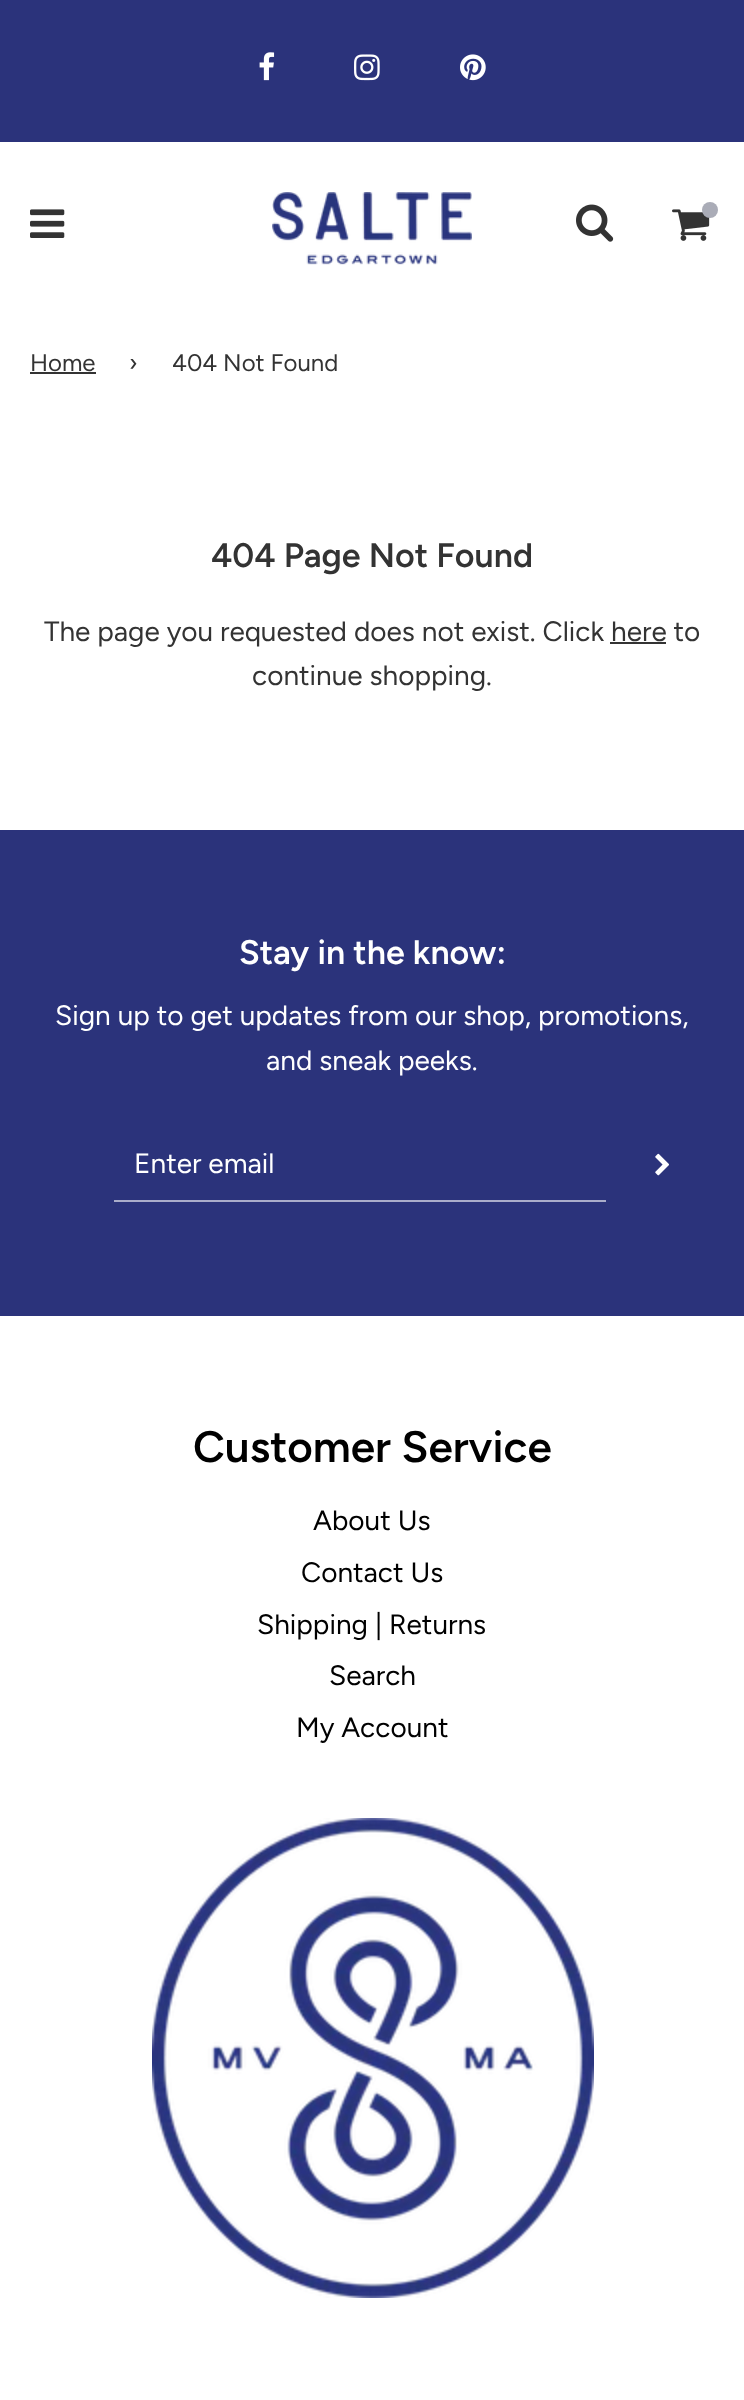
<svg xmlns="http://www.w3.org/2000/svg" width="744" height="2400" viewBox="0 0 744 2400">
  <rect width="100%" height="100%" fill="rgb(255,255,255)"/>
  <rect x="0" y="0" width="744" height="142" fill="rgb(43,51,123)"/>
  <image x="259" y="52" width="16" height="29" href="pic1.png"/>
  <image x="354" y="54" width="26" height="27" href="pic2.png"/>
  <image x="460" y="54" width="26" height="27" href="pic3.png"/>
  <image x="30" y="209" width="35" height="29" href="pic4.png"/>
  <image x="272" y="192" width="200" height="73" href="pic5.png"/>
  <image x="576" y="204" width="38" height="38" href="pic6.png"/>
  <image x="672" y="209" width="38" height="32" href="pic7.png"/>
  <circle cx="710" cy="210" r="8" fill="rgb(170,172,183)"/>
  <text x="30" y="371" font-family="Figtree" font-size="24" fill="rgb(51,51,51)">Home</text>
  <rect x="30" y="372" width="66" height="2" fill="rgb(51,51,51)"/>
  <g font-family="Figtree" font-size="24" fill="rgb(51,51,51)">
    <text x="129" y="371">›</text>
    <text x="172" y="371">404 Not Found</text>
  </g>
  <text x="211" y="567" font-family="Figtree" font-size="34" font-weight="600" fill="rgb(51,51,51)">404 Page Not Found</text>
  <text x="44" y="641" font-family="Figtree" font-size="28" fill="rgb(51,51,51)">The page you requested does not exist. Click here to</text>
  <rect x="610" y="642" width="56" height="2" fill="rgb(51,51,51)"/>
  <text x="252" y="685" font-family="Figtree" font-size="28" fill="rgb(51,51,51)">continue shopping.</text>
  <rect x="0" y="830" width="744" height="486" fill="rgb(43,51,123)"/>
  <text x="239" y="964" font-family="Figtree" font-size="34" font-weight="600" fill="rgb(255,255,255)">Stay in the know:</text>
  <g font-family="Figtree" font-size="28" fill="rgb(255,255,255)">
    <text x="55" y="1025">Sign up to get updates from our shop, promotions,</text>
    <text x="266" y="1070">and sneak peeks.</text>
  </g>
  <rect x="114" y="1200" width="492" height="2" fill="rgb(170,173,202)"/>
  <text x="134" y="1173" font-family="Figtree" font-size="28" fill="rgb(255,255,255)">Enter email</text>
  <image x="655" y="1153" width="14" height="23" href="pic8.png"/>
  <text x="193" y="1462" font-family="Figtree" font-size="44" font-weight="600" fill="rgb(0,0,0)">Customer Service</text>
  <g font-family="Figtree" font-size="28" fill="rgb(0,0,0)">
    <text x="313" y="1530">About Us</text>
    <text x="301" y="1582">Contact Us</text>
    <text x="257" y="1634">Shipping | Returns</text>
    <text x="329" y="1685">Search</text>
    <text x="296" y="1737">My Account</text>
  </g>
  <image x="152" y="1818" width="442" height="480" href="pic9.png"/>
</svg>
